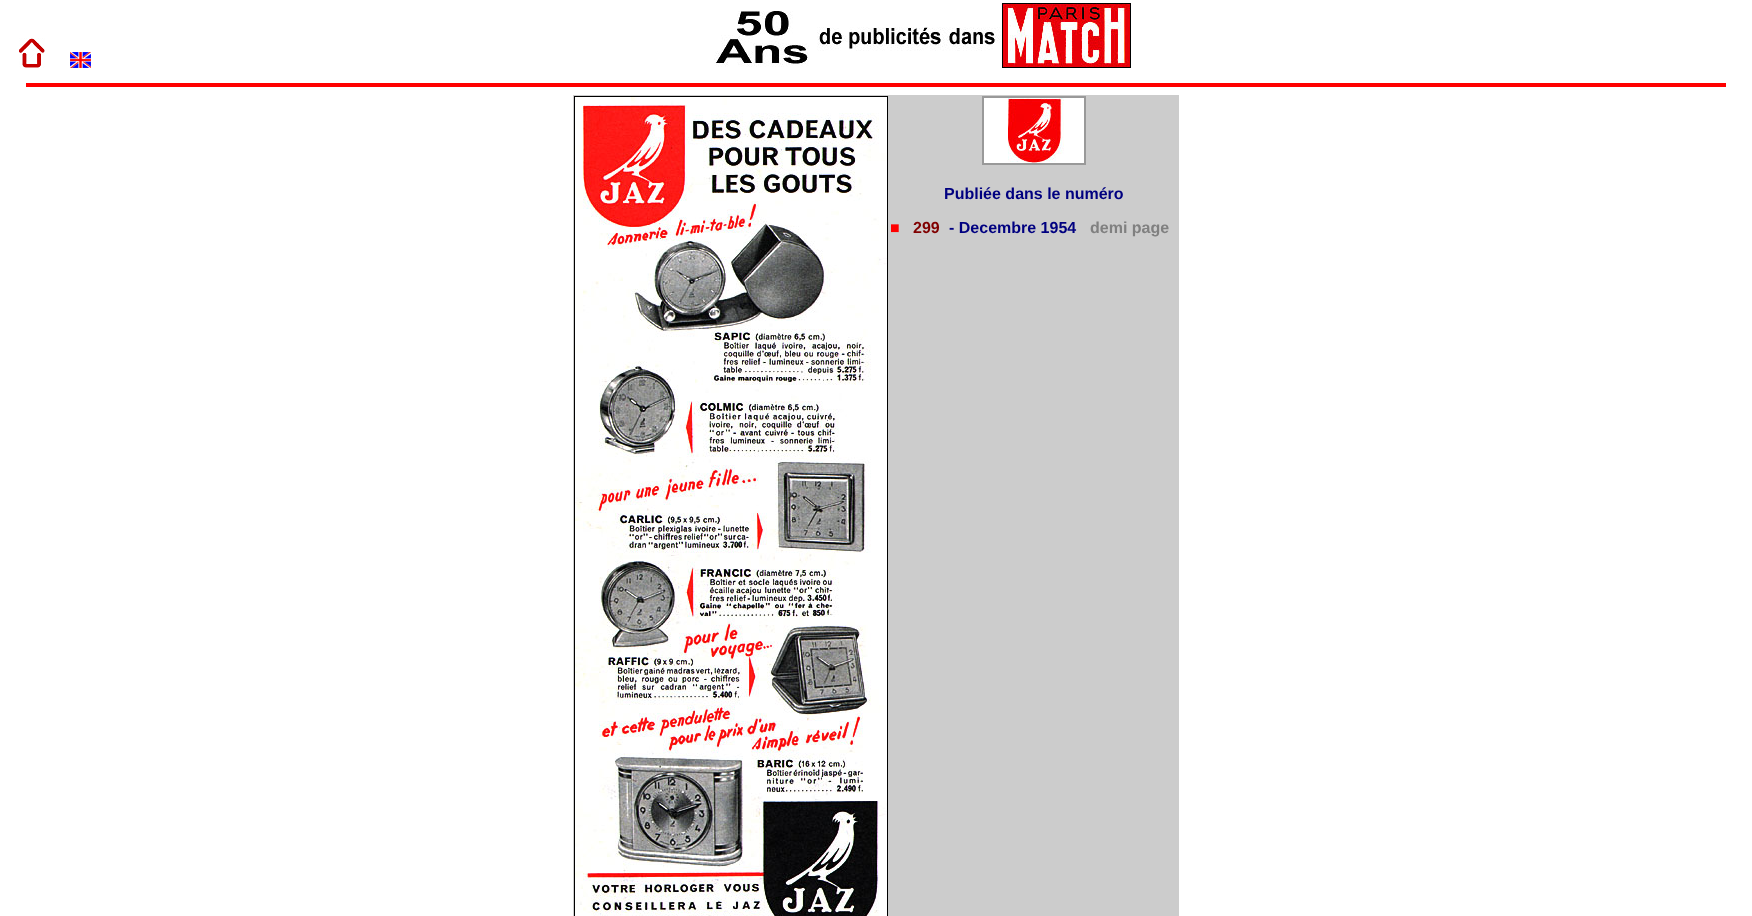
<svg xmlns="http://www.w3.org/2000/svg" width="1752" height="916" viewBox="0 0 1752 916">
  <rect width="100%" height="100%" fill="rgb(255,255,255)"/>
  <image x="19" y="38" width="26" height="30" href="pic1.png"/>
  <image x="70" y="52" width="21" height="16" href="pic2.png"/>
  <image x="714" y="3" width="417" height="65" href="pic3.png"/>
  <rect x="26" y="83" width="1700" height="4" fill="rgb(255,0,0)"/>
  <rect x="573" y="95" width="606" height="821" fill="rgb(204,204,204)"/>
  <rect x="574.5" y="96.5" width="313" height="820" fill="none" stroke="rgb(0,0,0)"/>
  <image x="575" y="97" width="312" height="819" href="pic4.png"/>
  <rect x="983" y="97" width="102" height="67" fill="none" stroke="rgb(153,153,153)" stroke-width="2"/>
  <image x="984" y="98" width="100" height="65" href="pic5.png"/>
  <text x="944" y="199" font-family="Liberation Sans" font-size="16" font-weight="bold" fill="rgb(0,0,128)">Publiée dans le numéro</text>
  <text x="890" y="233" font-family="Liberation Sans" font-size="16" font-weight="bold" fill="rgb(255,0,0)">■</text>
  <text x="913" y="233" font-family="Liberation Sans" font-size="16" font-weight="bold" fill="rgb(128,0,0)">299</text>
  <text x="949" y="233" font-family="Liberation Sans" font-size="16" font-weight="bold" fill="rgb(0,0,128)">- Decembre 1954</text>
  <text x="1090" y="233" font-family="Liberation Sans" font-size="16" font-weight="bold" fill="rgb(128,128,128)">demi page</text>
</svg>
